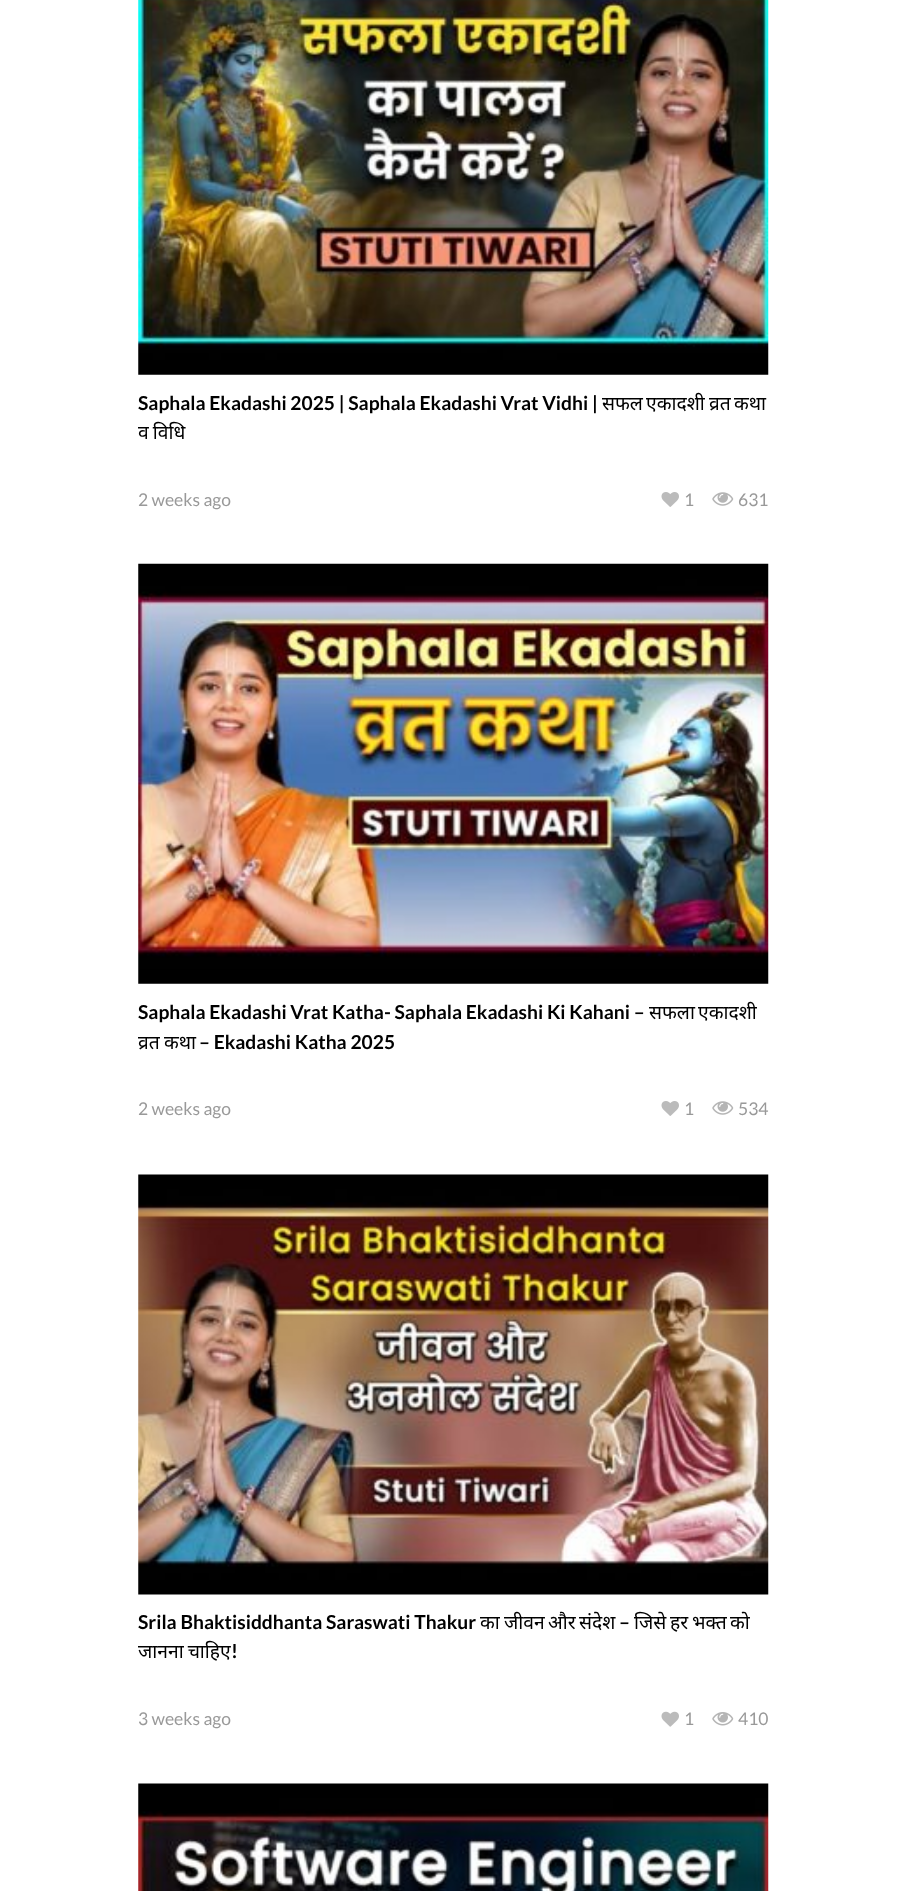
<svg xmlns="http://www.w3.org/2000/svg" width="905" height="1891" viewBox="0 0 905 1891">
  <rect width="100%" height="100%" fill="rgb(255,255,255)"/>
  <image x="138" y="0" width="631" height="375" href="pic1.png"/>
  <text x="138" y="410" font-family="Lato" font-size="19.25" font-weight="bold" fill="rgb(0,0,0)">Saphala Ekadashi 2025 | Saphala Ekadashi Vrat Vidhi |</text>
  <g font-family="Noto Sans" font-size="19.25" fill="rgb(0,0,0)">
    <text x="602" y="410">सफल</text>
    <text x="646" y="410">एकादशी</text>
    <text x="709" y="410">व्रत</text>
    <text x="734" y="410">कथा</text>
    <text x="138" y="439" word-spacing="-1">व विधि</text>
  </g>
  <text x="138" y="506" font-family="Lato" font-size="17.5" fill="rgb(153,153,153)">2 weeks ago</text>
  <image x="661" y="492" width="18" height="15" href="pic2.png"/>
  <text x="684" y="506" font-family="Lato" font-size="17.5" fill="rgb(153,153,153)">1</text>
  <image x="712" y="492" width="22" height="14" href="pic3.png"/>
  <text x="738" y="506" font-family="Lato" font-size="17.5" fill="rgb(153,153,153)">631</text>
  <image x="138" y="563" width="631" height="421" href="pic4.png"/>
  <text x="138" y="1019" font-family="Lato" font-size="19.25" font-weight="bold" fill="rgb(0,0,0)">Saphala Ekadashi Vrat Katha- Saphala Ekadashi Ki Kahani –</text>
  <g font-family="Noto Sans" font-size="19.25" fill="rgb(0,0,0)">
    <text x="649" y="1019">सफला</text>
    <text x="698" y="1019">एकादशी</text>
    <text x="138" y="1049">व्रत</text>
    <text x="164" y="1049">कथा</text>
  </g>
  <text x="199" y="1049" font-family="Lato" font-size="19.25" font-weight="bold" fill="rgb(0,0,0)">– Ekadashi Katha 2025</text>
  <text x="138" y="1115" font-family="Lato" font-size="17.5" fill="rgb(153,153,153)">2 weeks ago</text>
  <image x="661" y="1101" width="18" height="15" href="pic2.png"/>
  <text x="684" y="1115" font-family="Lato" font-size="17.5" fill="rgb(153,153,153)">1</text>
  <image x="712" y="1101" width="22" height="14" href="pic5.png"/>
  <text x="738" y="1115" font-family="Lato" font-size="17.5" fill="rgb(153,153,153)">534</text>
  <image x="138" y="1174" width="631" height="421" href="pic6.png"/>
  <text x="138" y="1629" font-family="Lato" font-size="19.25" font-weight="bold" fill="rgb(0,0,0)">Srila Bhaktisiddhanta Saraswati Thakur</text>
  <g font-family="Noto Sans" font-size="19.25" fill="rgb(0,0,0)">
    <text x="480" y="1629">का</text>
    <text x="504" y="1629">जीवन</text>
    <text x="548" y="1629">और</text>
    <text x="579" y="1629">संदेश</text>
  </g>
  <text x="619" y="1629" font-family="Lato" font-size="19.25" font-weight="bold" fill="rgb(0,0,0)">–</text>
  <g font-family="Noto Sans" font-size="19.25" fill="rgb(0,0,0)">
    <text x="634" y="1629">जिसे</text>
    <text x="670" y="1629">हर</text>
    <text x="692" y="1629">भक्त</text>
    <text x="730" y="1629">को</text>
    <text x="138" y="1658" word-spacing="-1">जानना चाहिए</text>
  </g>
  <text x="231" y="1658" font-family="Lato" font-size="19.25" font-weight="bold" fill="rgb(0,0,0)">!</text>
  <text x="138" y="1725" font-family="Lato" font-size="17.5" fill="rgb(153,153,153)">3 weeks ago</text>
  <image x="661" y="1711" width="18" height="16" href="pic7.png"/>
  <text x="684" y="1725" font-family="Lato" font-size="17.5" fill="rgb(153,153,153)">1</text>
  <image x="712" y="1712" width="22" height="14" href="pic8.png"/>
  <text x="738" y="1725" font-family="Lato" font-size="17.5" fill="rgb(153,153,153)">410</text>
  <image x="138" y="1783" width="631" height="108" href="pic9.png"/>
</svg>
